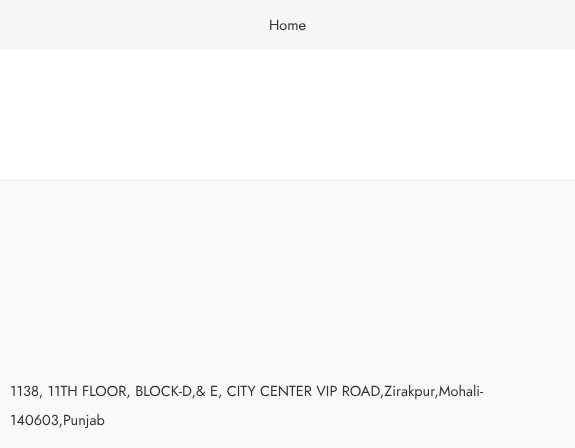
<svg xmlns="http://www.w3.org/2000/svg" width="575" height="448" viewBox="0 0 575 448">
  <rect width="100%" height="100%" fill="rgb(255,255,255)"/>
  <rect x="0" y="0" width="575" height="50" fill="rgb(247,247,247)"/>
  <text x="269" y="30" font-family="Jost" font-size="14.5" fill="rgb(51,51,51)">Home</text>
  <rect x="0" y="181" width="575" height="267" fill="rgb(250,250,250)"/>
  <rect x="0" y="180" width="575" height="1" fill="rgb(236,236,236)"/>
  <g font-family="Jost" font-size="14.5" fill="rgb(51,51,51)">
    <text x="10" y="396">1138, 11TH FLOOR, BLOCK-D,&amp; E, CITY CENTER VIP ROAD,Zirakpur,Mohali-</text>
    <text x="10" y="425">140603,Punjab</text>
  </g>
</svg>
